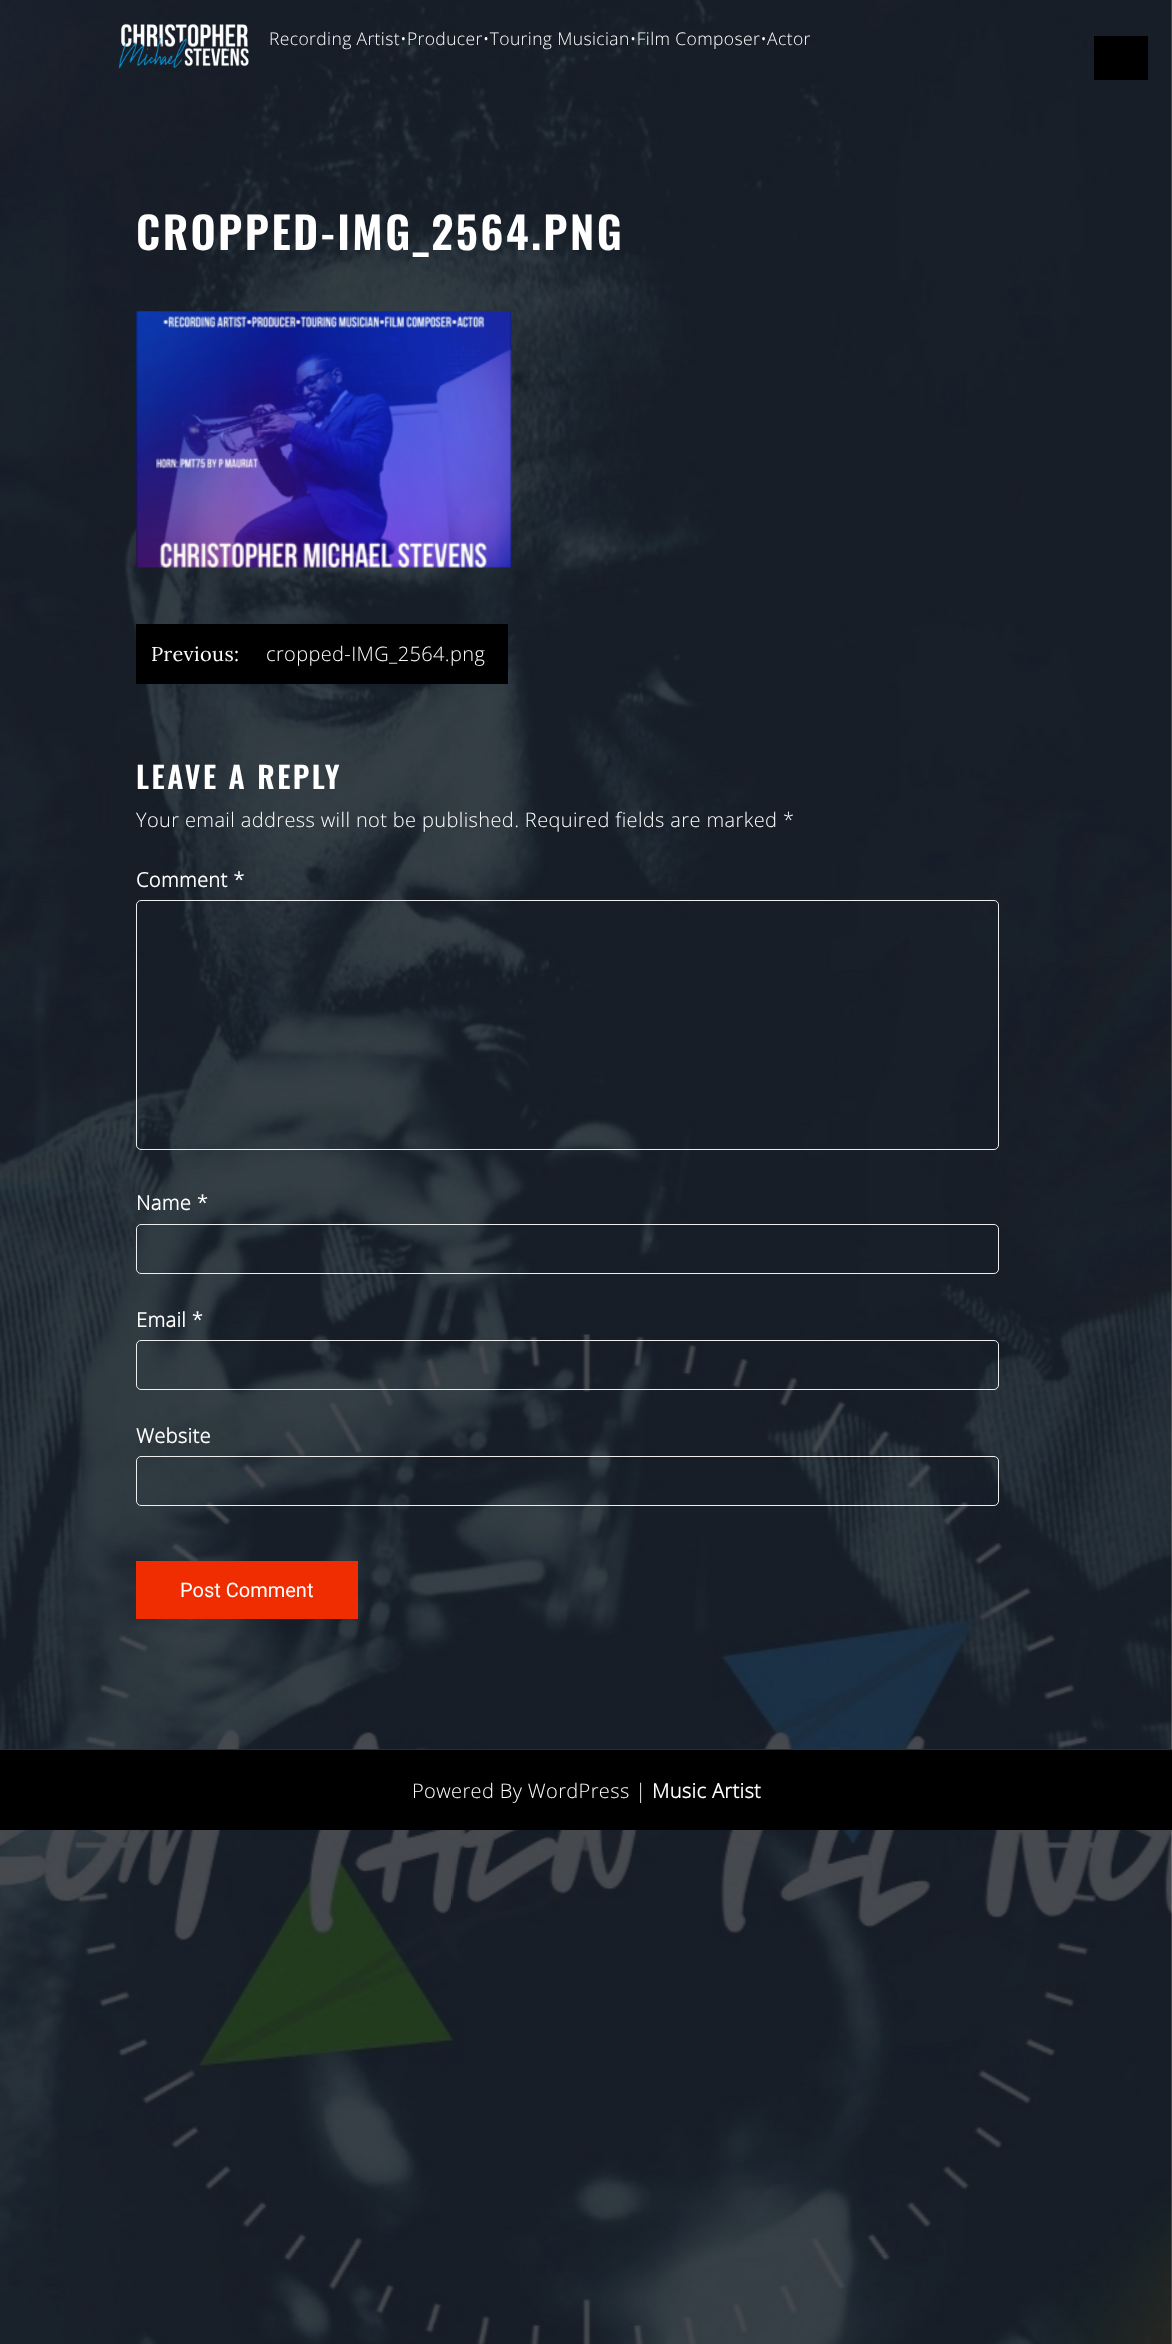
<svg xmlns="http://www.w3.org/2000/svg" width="1172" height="2344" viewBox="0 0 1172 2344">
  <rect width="100%" height="100%" fill="rgb(255,255,255)"/>
  <image x="0" y="0" width="1172" height="2344" href="pic1.png"/>
  <image x="118" y="23" width="131" height="46" href="pic2.png"/>
  <text x="269" y="45" font-family="Open Sans" font-size="17.5" font-weight="300" letter-spacing="0.38" fill="rgb(255,255,255)">Recording Artist•Producer•Touring Musician•Film Composer•Actor</text>
  <rect x="1094" y="36" width="54" height="44" fill="rgb(0,0,0)"/>
  <text x="136" y="250" font-family="Oswald" font-size="43.75" font-weight="600" letter-spacing="2.5" fill="rgb(255,255,255)">CROPPED-IMG_2564.PNG</text>
  <image x="136" y="311" width="376" height="257" href="pic3.png"/>
  <rect x="136" y="624" width="372" height="60" fill="rgb(0,0,0)"/>
  <text x="151" y="661" font-family="Lora" font-size="20" letter-spacing="0.38" fill="rgb(255,255,255)">Previous:</text>
  <text x="266" y="661" font-family="Open Sans" font-size="20" font-weight="300" letter-spacing="0.38" fill="rgb(255,255,255)">cropped-IMG_2564.png</text>
  <text x="136" y="789" font-family="Oswald" font-size="30" font-weight="600" letter-spacing="2.5" fill="rgb(255,255,255)">LEAVE A REPLY</text>
  <text x="136" y="827" font-family="Open Sans" font-size="20" font-weight="300" letter-spacing="0.38" fill="rgb(255,255,255)">Your email address will not be published. Required fields are marked *</text>
  <text x="136" y="887" font-family="Open Sans" font-size="20" font-weight="bold" letter-spacing="0.38" fill="rgb(255,255,255)">Comment *</text>
  <rect x="136.5" y="900.5" width="862" height="249" rx="4.5" fill="none" stroke="rgb(238,238,238)"/>
  <text x="136" y="1210" font-family="Open Sans" font-size="20" font-weight="bold" letter-spacing="0.38" fill="rgb(255,255,255)">Name *</text>
  <rect x="136.5" y="1224.5" width="862" height="49" rx="4.5" fill="none" stroke="rgb(238,238,238)"/>
  <text x="136" y="1327" font-family="Open Sans" font-size="20" font-weight="bold" letter-spacing="0.38" fill="rgb(255,255,255)">Email *</text>
  <rect x="136.5" y="1340.5" width="862" height="49" rx="4.5" fill="none" stroke="rgb(238,238,238)"/>
  <text x="136" y="1443" font-family="Open Sans" font-size="20" font-weight="bold" letter-spacing="0.38" fill="rgb(255,255,255)">Website</text>
  <rect x="136.5" y="1456.5" width="862" height="49" rx="4.5" fill="none" stroke="rgb(238,238,238)"/>
  <rect x="136" y="1561" width="222" height="58" fill="rgb(240,45,0)"/>
  <text x="180" y="1597" font-family="Roboto" font-size="20" fill="rgb(255,255,255)">Post Comment</text>
  <rect x="0" y="1750" width="1172" height="80" fill="rgb(0,0,0)"/>
  <rect x="0" y="1749" width="1172" height="1" fill="rgb(45,45,45)"/>
  <text x="412" y="1798" font-family="Open Sans" font-size="20" font-weight="300" letter-spacing="0.38" fill="rgb(255,255,255)">Powered By WordPress |</text>
  <text x="652" y="1798" font-family="Open Sans" font-size="20" font-weight="bold" letter-spacing="0.38" fill="rgb(255,255,255)">Music Artist</text>
</svg>
